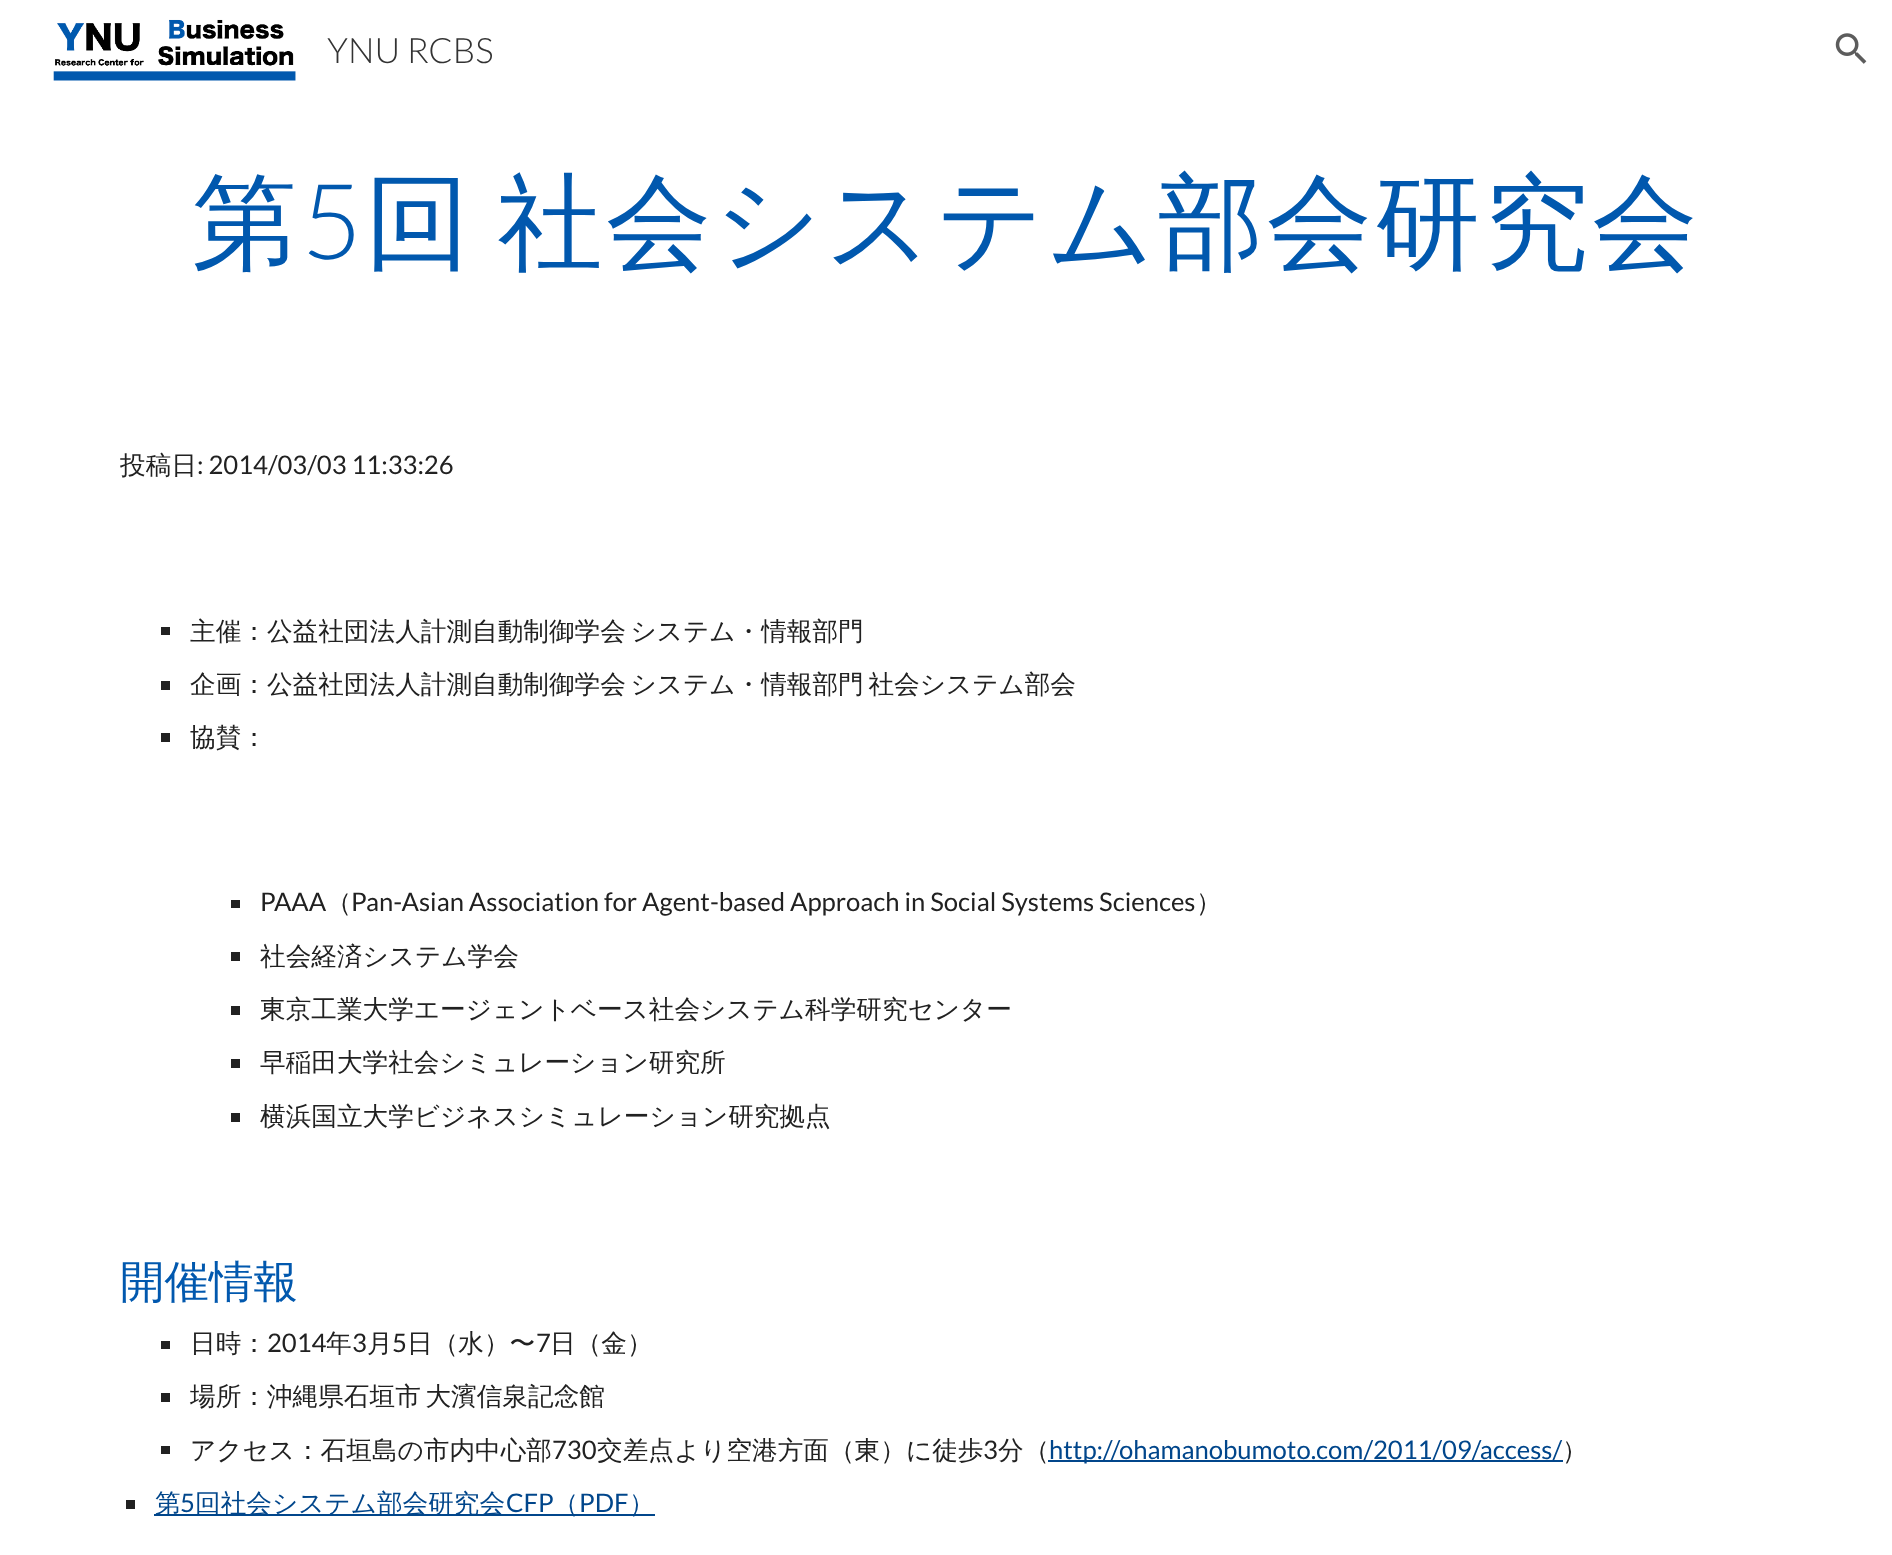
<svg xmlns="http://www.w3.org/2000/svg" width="1892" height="1555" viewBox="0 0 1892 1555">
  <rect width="100%" height="100%" fill="rgb(255,255,255)"/>
  <image x="53" y="19" width="243" height="62" href="pic1.png"/>
  <text x="327" y="63" font-family="Lato" font-size="35" font-weight="300" fill="rgb(51,51,51)">YNU RCBS</text>
  <image x="1835" y="33" width="32" height="31" href="pic2.png"/>
  <text x="192" y="259" font-family="WenQuanYi Zen Hei" font-size="105" font-weight="500" letter-spacing="3.5" fill="rgb(1,88,174)">第</text>
  <text x="301" y="259" font-family="Lato" font-size="105" font-weight="300" letter-spacing="3.5" fill="rgb(1,88,174)">5</text>
  <text x="365" y="259" word-spacing="-11" font-family="WenQuanYi Zen Hei" font-size="105" font-weight="500" letter-spacing="3.5" fill="rgb(1,88,174)">回 社会システム部会研究会</text>
  <text x="120" y="474" font-family="WenQuanYi Zen Hei" font-size="25.65" font-weight="500" fill="rgb(33,33,33)">投稿日</text>
  <text x="197" y="474" font-family="Lato" font-size="25.65" fill="rgb(33,33,33)">: 2014/03/03 11:33:26</text>
  <rect x="161" y="627" width="9" height="8" fill="rgb(33,33,33)"/>
  <text x="190" y="640" word-spacing="-3" font-family="WenQuanYi Zen Hei" font-size="25.65" font-weight="500" fill="rgb(33,33,33)">主催：公益社団法人計測自動制御学会 システム・情報部門</text>
  <rect x="161" y="681" width="9" height="9" fill="rgb(33,33,33)"/>
  <text x="190" y="693" word-spacing="-3" font-family="WenQuanYi Zen Hei" font-size="25.65" font-weight="500" fill="rgb(33,33,33)">企画：公益社団法人計測自動制御学会 システム・情報部門 社会システム部会</text>
  <rect x="161" y="733" width="9" height="9" fill="rgb(33,33,33)"/>
  <text x="190" y="746" font-family="WenQuanYi Zen Hei" font-size="25.65" font-weight="500" fill="rgb(33,33,33)">協賛：</text>
  <rect x="231" y="900" width="9" height="8" fill="rgb(33,33,33)"/>
  <text x="260" y="911" font-family="Lato" font-size="25.65" fill="rgb(33,33,33)">PAAA</text>
  <text x="326" y="911" font-family="WenQuanYi Zen Hei" font-size="25.65" font-weight="500" fill="rgb(33,33,33)">（</text>
  <text x="351" y="911" font-family="Lato" font-size="25.65" fill="rgb(33,33,33)">Pan-Asian Association for Agent-based Approach in Social Systems Sciences</text>
  <text x="1196" y="911" font-family="WenQuanYi Zen Hei" font-size="25.65" font-weight="500" fill="rgb(33,33,33)">）</text>
  <rect x="231" y="952" width="9" height="9" fill="rgb(33,33,33)"/>
  <text x="260" y="965" font-family="WenQuanYi Zen Hei" font-size="25.65" font-weight="500" fill="rgb(33,33,33)">社会経済システム学会</text>
  <rect x="231" y="1006" width="9" height="9" fill="rgb(33,33,33)"/>
  <text x="260" y="1018" font-family="WenQuanYi Zen Hei" font-size="25.65" font-weight="500" fill="rgb(33,33,33)">東京工業大学エージェントベース社会システム科学研究センター</text>
  <rect x="231" y="1059" width="9" height="9" fill="rgb(33,33,33)"/>
  <text x="260" y="1071" font-family="WenQuanYi Zen Hei" font-size="25.65" font-weight="500" fill="rgb(33,33,33)">早稲田大学社会シミュレーション研究所</text>
  <rect x="231" y="1113" width="9" height="9" fill="rgb(33,33,33)"/>
  <text x="260" y="1125" font-family="WenQuanYi Zen Hei" font-size="25.65" font-weight="500" fill="rgb(33,33,33)">横浜国立大学ビジネスシミュレーション研究拠点</text>
  <text x="120" y="1297" font-family="WenQuanYi Zen Hei" font-size="44.5" font-weight="500" fill="rgb(1,88,174)">開催情報</text>
  <rect x="161" y="1341" width="9" height="8" fill="rgb(33,33,33)"/>
  <text x="190" y="1352" font-family="WenQuanYi Zen Hei" font-size="25.65" font-weight="500" fill="rgb(33,33,33)">日時：</text>
  <text x="267" y="1352" font-family="Lato" font-size="25.65" fill="rgb(33,33,33)">2014</text>
  <text x="326" y="1352" font-family="WenQuanYi Zen Hei" font-size="25.65" font-weight="500" fill="rgb(33,33,33)">年</text>
  <text x="352" y="1352" font-family="Lato" font-size="25.65" fill="rgb(33,33,33)">3</text>
  <text x="367" y="1352" font-family="WenQuanYi Zen Hei" font-size="25.65" font-weight="500" fill="rgb(33,33,33)">月</text>
  <text x="392" y="1352" font-family="Lato" font-size="25.65" fill="rgb(33,33,33)">5</text>
  <text x="407" y="1352" font-family="WenQuanYi Zen Hei" font-size="25.65" font-weight="500" fill="rgb(33,33,33)">日（水）〜</text>
  <text x="536" y="1352" font-family="Lato" font-size="25.65" fill="rgb(33,33,33)">7</text>
  <text x="550" y="1352" font-family="WenQuanYi Zen Hei" font-size="25.65" font-weight="500" fill="rgb(33,33,33)">日（金）</text>
  <rect x="161" y="1393" width="9" height="9" fill="rgb(33,33,33)"/>
  <text x="190" y="1405" word-spacing="-3" font-family="WenQuanYi Zen Hei" font-size="25.65" font-weight="500" fill="rgb(33,33,33)">場所：沖縄県石垣市 大濱信泉記念館</text>
  <rect x="161" y="1446" width="9" height="8" fill="rgb(33,33,33)"/>
  <text x="190" y="1459" font-family="WenQuanYi Zen Hei" font-size="25.65" font-weight="500" fill="rgb(33,33,33)">アクセス：石垣島の市内中心部</text>
  <text x="552" y="1459" font-family="Lato" font-size="25.65" fill="rgb(33,33,33)">730</text>
  <text x="597" y="1459" font-family="WenQuanYi Zen Hei" font-size="25.65" font-weight="500" fill="rgb(33,33,33)">交差点より空港方面（東）に徒歩</text>
  <text x="983" y="1459" font-family="Lato" font-size="25.65" fill="rgb(33,33,33)">3</text>
  <text x="998" y="1459" font-family="WenQuanYi Zen Hei" font-size="25.65" font-weight="500" fill="rgb(33,33,33)">分（</text>
  <rect x="1048" y="1460" width="515" height="2" fill="rgb(1,70,139)"/>
  <text x="1049" y="1459" font-family="Lato" font-size="25.65" fill="rgb(1,70,139)">http://ohamanobumoto.com/2011/09/access/</text>
  <text x="1562" y="1459" font-family="WenQuanYi Zen Hei" font-size="25.65" font-weight="500" fill="rgb(33,33,33)">）</text>
  <rect x="126" y="1500" width="9" height="9" fill="rgb(33,33,33)"/>
  <rect x="154" y="1514" width="501" height="2" fill="rgb(1,70,139)"/>
  <text x="155" y="1512" font-family="WenQuanYi Zen Hei" font-size="25.65" font-weight="500" fill="rgb(1,70,139)">第</text>
  <text x="180" y="1512" font-family="Lato" font-size="25.65" fill="rgb(1,70,139)">5</text>
  <text x="195" y="1512" font-family="WenQuanYi Zen Hei" font-size="25.65" font-weight="500" fill="rgb(1,70,139)">回社会システム部会研究会</text>
  <text x="506" y="1512" font-family="Lato" font-size="25.65" fill="rgb(1,70,139)">CFP</text>
  <text x="553" y="1512" font-family="WenQuanYi Zen Hei" font-size="25.65" font-weight="500" fill="rgb(1,70,139)">（</text>
  <text x="579" y="1512" font-family="Lato" font-size="25.65" fill="rgb(1,70,139)">PDF</text>
  <text x="629" y="1512" font-family="WenQuanYi Zen Hei" font-size="25.65" font-weight="500" fill="rgb(1,70,139)">）</text>
</svg>
